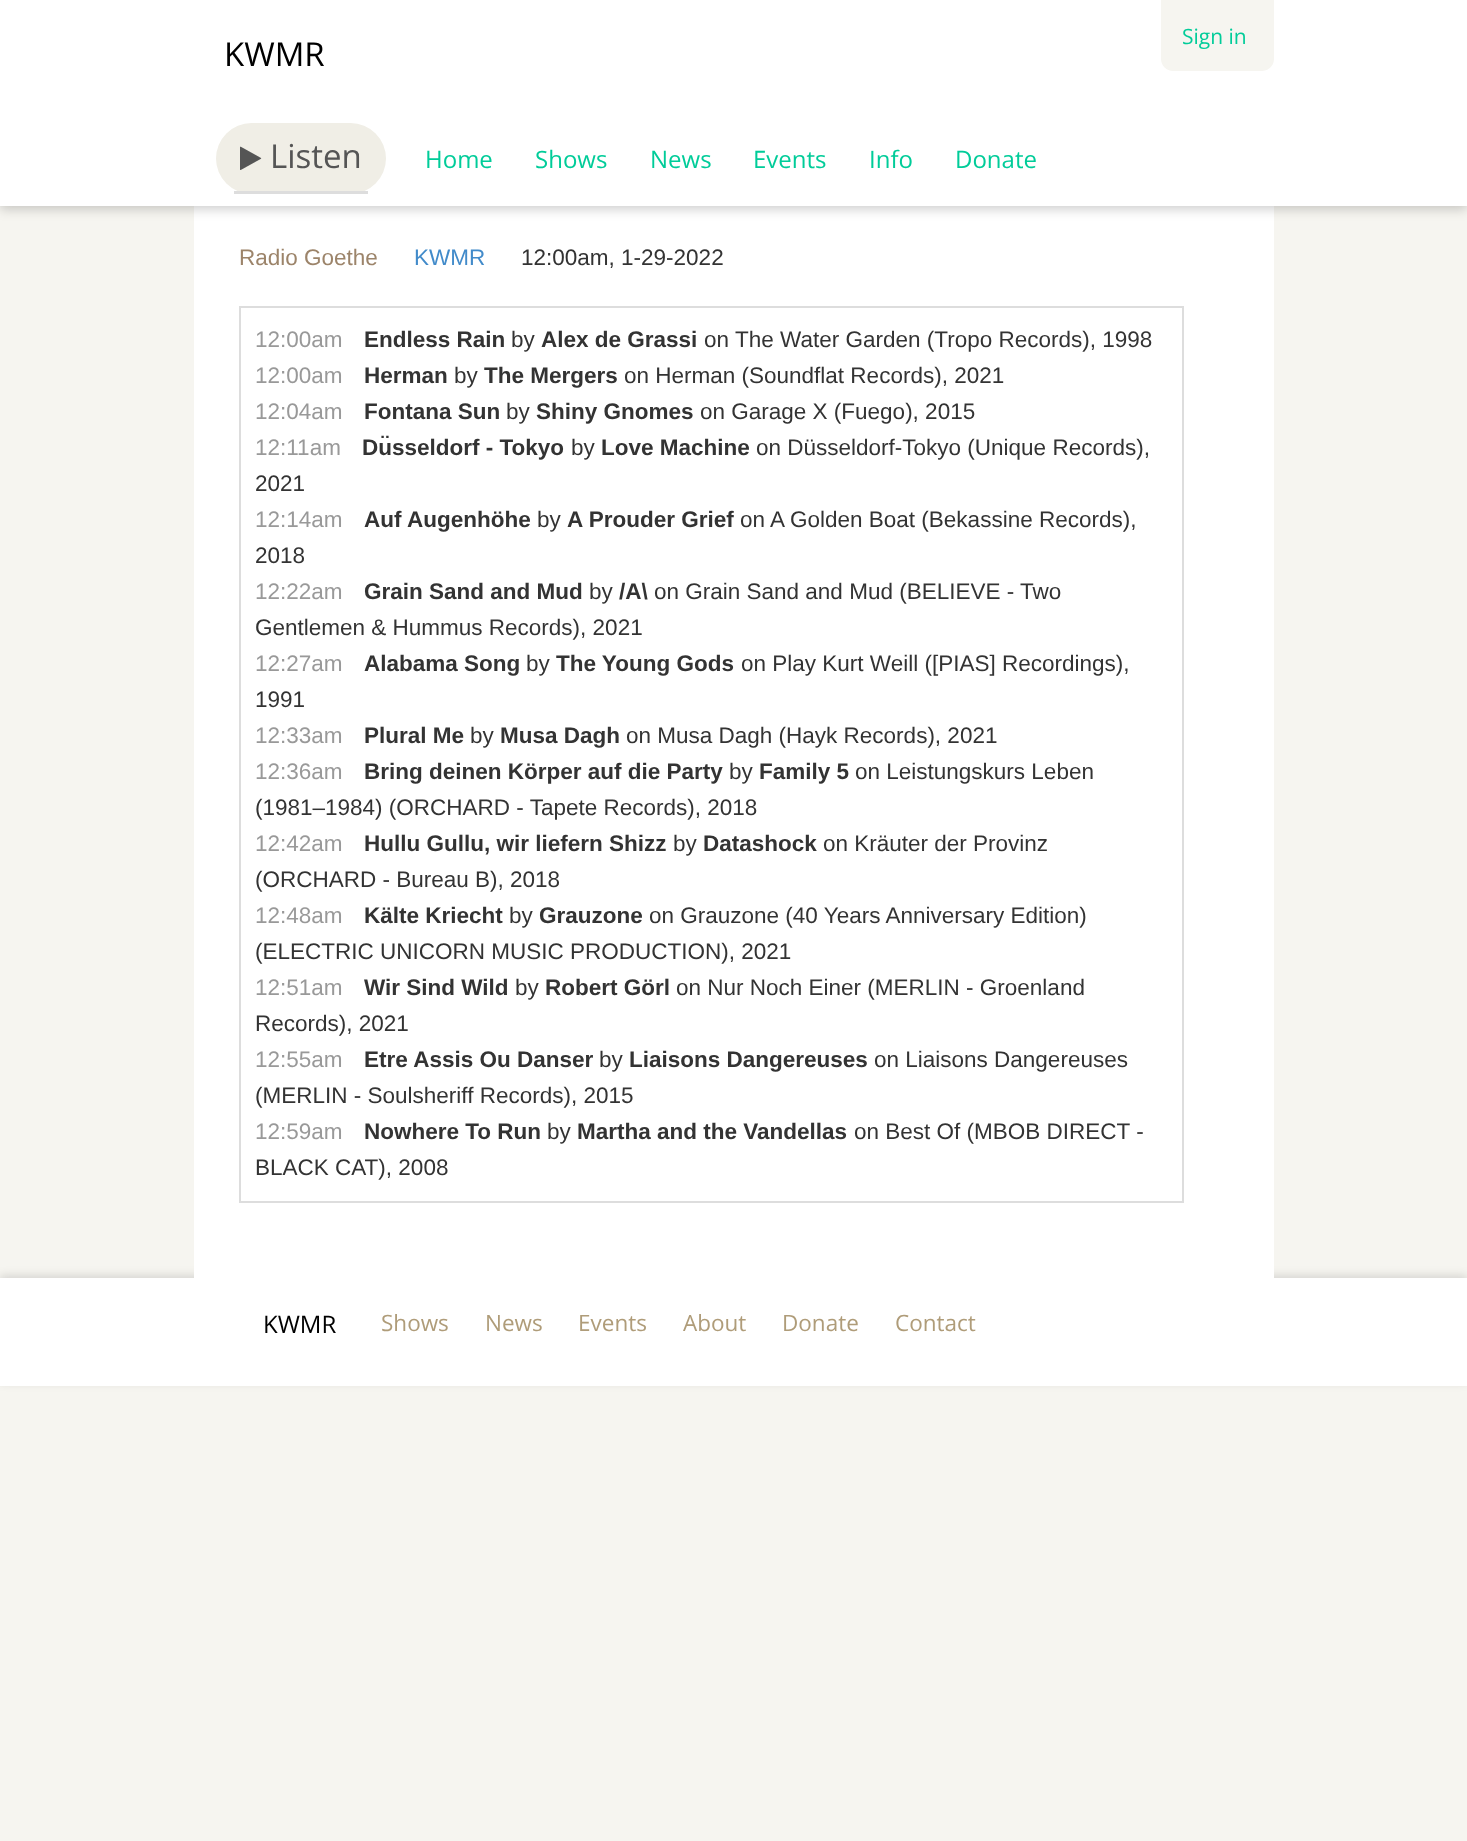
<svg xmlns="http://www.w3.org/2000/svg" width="1467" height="1841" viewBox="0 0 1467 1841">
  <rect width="100%" height="100%" fill="rgb(246,245,240)"/>
  <rect x="0" y="1275" width="1467" height="108" fill="rgba(0,0,0,0.12)" filter="blur(4.5px)"/>
  <rect x="194" y="206" width="1080" height="1072" fill="rgb(255,255,255)"/>
  <rect x="0" y="3" width="1467" height="206" fill="rgba(0,0,0,0.2)" filter="blur(6px)"/>
  <rect x="0" y="0" width="1467" height="206" fill="rgb(255,255,255)"/>
  <path d="M1161 0H1274V59C1274 65.5 1268.5 71 1262 71H1173C1166.5 71 1161 65.5 1161 59Z" fill="rgb(246,245,240)"/>
  <text x="1182" y="44" font-family="Open Sans" font-size="21" fill="rgb(0,204,153)">Sign in</text>
  <rect x="216" y="123" width="170" height="71" rx="35.5" fill="rgb(240,238,230)"/>
  <rect x="234" y="191" width="134" height="3" fill="rgb(221,221,221)"/>
  <image x="240" y="146" width="22" height="24" href="pic1.png"/>
  <text x="270" y="168" font-family="Open Sans" font-size="33" fill="rgb(85,85,85)">Listen</text>
  <g font-family="Open Sans" font-size="24" fill="rgb(0,204,153)">
    <text x="425" y="168">Home</text>
    <text x="535" y="168">Shows</text>
    <text x="650" y="168">News</text>
    <text x="753" y="168">Events</text>
    <text x="869" y="168">Info</text>
    <text x="955" y="168">Donate</text>
  </g>
  <text x="224" y="66" font-family="Open Sans" font-size="33" fill="rgb(0,0,0)">KWMR</text>
  <text x="239" y="265" font-family="Liberation Sans" font-size="22.5" fill="rgb(156,132,106)">Radio Goethe</text>
  <text x="414" y="265" font-family="Liberation Sans" font-size="22.5" fill="rgb(66,139,202)">KWMR</text>
  <text x="521" y="265" font-family="Liberation Sans" font-size="22.5" fill="rgb(51,51,51)">12:00am, 1-29-2022</text>
  <rect x="240" y="307" width="943" height="895" fill="none" stroke="rgb(221,221,221)" stroke-width="2"/>
  <text x="255" y="347" font-family="Liberation Sans" font-size="22.5" fill="rgb(153,153,153)">12:00am</text>
  <text x="364" y="347" font-family="Liberation Sans" font-size="22.5" font-weight="bold" fill="rgb(51,51,51)">Endless Rain</text>
  <text x="511" y="347" font-family="Liberation Sans" font-size="22.5" fill="rgb(51,51,51)">by</text>
  <text x="541" y="347" font-family="Liberation Sans" font-size="22.5" font-weight="bold" fill="rgb(51,51,51)">Alex de Grassi</text>
  <g font-family="Liberation Sans" font-size="22.5" fill="rgb(51,51,51)">
    <text x="704" y="347">on</text>
    <text x="735" y="347">The Water Garden (Tropo Records), 1998</text>
  </g>
  <text x="255" y="383" font-family="Liberation Sans" font-size="22.5" fill="rgb(153,153,153)">12:00am</text>
  <text x="364" y="383" font-family="Liberation Sans" font-size="22.5" font-weight="bold" fill="rgb(51,51,51)">Herman</text>
  <text x="454" y="383" font-family="Liberation Sans" font-size="22.5" fill="rgb(51,51,51)">by</text>
  <text x="484" y="383" font-family="Liberation Sans" font-size="22.5" font-weight="bold" fill="rgb(51,51,51)">The Mergers</text>
  <text x="624" y="383" font-family="Liberation Sans" font-size="22.5" fill="rgb(51,51,51)">on Herman (Soundflat Records), 2021</text>
  <text x="255" y="419" font-family="Liberation Sans" font-size="22.5" fill="rgb(153,153,153)">12:04am</text>
  <text x="364" y="419" font-family="Liberation Sans" font-size="22.5" font-weight="bold" fill="rgb(51,51,51)">Fontana Sun</text>
  <text x="506" y="419" font-family="Liberation Sans" font-size="22.5" fill="rgb(51,51,51)">by</text>
  <text x="536" y="419" font-family="Liberation Sans" font-size="22.5" font-weight="bold" fill="rgb(51,51,51)">Shiny Gnomes</text>
  <text x="700" y="419" font-family="Liberation Sans" font-size="22.5" fill="rgb(51,51,51)">on Garage X (Fuego), 2015</text>
  <text x="255" y="455" font-family="Liberation Sans" font-size="22.5" fill="rgb(153,153,153)">12:11am</text>
  <text x="362" y="455" font-family="Liberation Sans" font-size="22.5" font-weight="bold" fill="rgb(51,51,51)">Düsseldorf - Tokyo</text>
  <text x="571" y="455" font-family="Liberation Sans" font-size="22.5" fill="rgb(51,51,51)">by</text>
  <text x="601" y="455" font-family="Liberation Sans" font-size="22.5" font-weight="bold" fill="rgb(51,51,51)">Love Machine</text>
  <g font-family="Liberation Sans" font-size="22.5" fill="rgb(51,51,51)">
    <text x="756" y="455">on Düsseldorf-Tokyo (Unique Records),</text>
    <text x="255" y="491">2021</text>
  </g>
  <text x="255" y="527" font-family="Liberation Sans" font-size="22.5" fill="rgb(153,153,153)">12:14am</text>
  <text x="364" y="527" font-family="Liberation Sans" font-size="22.5" font-weight="bold" fill="rgb(51,51,51)">Auf Augenhöhe</text>
  <text x="537" y="527" font-family="Liberation Sans" font-size="22.5" fill="rgb(51,51,51)">by</text>
  <text x="567" y="527" font-family="Liberation Sans" font-size="22.5" font-weight="bold" fill="rgb(51,51,51)">A Prouder Grief</text>
  <g font-family="Liberation Sans" font-size="22.5" fill="rgb(51,51,51)">
    <text x="740" y="527">on</text>
    <text x="770" y="527">A Golden Boat (Bekassine Records),</text>
    <text x="255" y="563">2018</text>
  </g>
  <text x="255" y="599" font-family="Liberation Sans" font-size="22.5" fill="rgb(153,153,153)">12:22am</text>
  <text x="364" y="599" font-family="Liberation Sans" font-size="22.5" font-weight="bold" fill="rgb(51,51,51)">Grain Sand and Mud</text>
  <text x="589" y="599" font-family="Liberation Sans" font-size="22.5" fill="rgb(51,51,51)">by</text>
  <text x="619" y="599" font-family="Liberation Sans" font-size="22.5" font-weight="bold" fill="rgb(51,51,51)">/A\</text>
  <g font-family="Liberation Sans" font-size="22.5" fill="rgb(51,51,51)">
    <text x="654" y="599">on Grain Sand and Mud (BELIEVE - Two</text>
    <text x="255" y="635">Gentlemen &amp; Hummus Records), 2021</text>
  </g>
  <text x="255" y="671" font-family="Liberation Sans" font-size="22.5" fill="rgb(153,153,153)">12:27am</text>
  <text x="364" y="671" font-family="Liberation Sans" font-size="22.5" font-weight="bold" fill="rgb(51,51,51)">Alabama Song</text>
  <text x="526" y="671" font-family="Liberation Sans" font-size="22.5" fill="rgb(51,51,51)">by</text>
  <text x="556" y="671" font-family="Liberation Sans" font-size="22.5" font-weight="bold" fill="rgb(51,51,51)">The Young Gods</text>
  <g font-family="Liberation Sans" font-size="22.5" fill="rgb(51,51,51)">
    <text x="741" y="671">on Play Kurt Weill ([PIAS] Recordings),</text>
    <text x="255" y="707">1991</text>
  </g>
  <text x="255" y="743" font-family="Liberation Sans" font-size="22.5" fill="rgb(153,153,153)">12:33am</text>
  <text x="364" y="743" font-family="Liberation Sans" font-size="22.5" font-weight="bold" fill="rgb(51,51,51)">Plural Me</text>
  <text x="470" y="743" font-family="Liberation Sans" font-size="22.5" fill="rgb(51,51,51)">by</text>
  <text x="500" y="743" font-family="Liberation Sans" font-size="22.5" font-weight="bold" fill="rgb(51,51,51)">Musa Dagh</text>
  <text x="626" y="743" font-family="Liberation Sans" font-size="22.5" fill="rgb(51,51,51)">on Musa Dagh (Hayk Records), 2021</text>
  <text x="255" y="779" font-family="Liberation Sans" font-size="22.5" fill="rgb(153,153,153)">12:36am</text>
  <text x="364" y="779" font-family="Liberation Sans" font-size="22.5" font-weight="bold" fill="rgb(51,51,51)">Bring deinen Körper auf die Party</text>
  <text x="729" y="779" font-family="Liberation Sans" font-size="22.5" fill="rgb(51,51,51)">by</text>
  <text x="759" y="779" font-family="Liberation Sans" font-size="22.5" font-weight="bold" fill="rgb(51,51,51)">Family 5</text>
  <g font-family="Liberation Sans" font-size="22.5" fill="rgb(51,51,51)">
    <text x="855" y="779">on Leistungskurs Leben</text>
    <text x="255" y="815">(1981–1984) (ORCHARD - Tapete Records), 2018</text>
  </g>
  <text x="255" y="851" font-family="Liberation Sans" font-size="22.5" fill="rgb(153,153,153)">12:42am</text>
  <text x="364" y="851" font-family="Liberation Sans" font-size="22.5" font-weight="bold" fill="rgb(51,51,51)">Hullu Gullu, wir liefern Shizz</text>
  <text x="673" y="851" font-family="Liberation Sans" font-size="22.5" fill="rgb(51,51,51)">by</text>
  <text x="703" y="851" font-family="Liberation Sans" font-size="22.5" font-weight="bold" fill="rgb(51,51,51)">Datashock</text>
  <g font-family="Liberation Sans" font-size="22.5" fill="rgb(51,51,51)">
    <text x="823" y="851">on Kräuter der Provinz</text>
    <text x="255" y="887">(ORCHARD - Bureau B), 2018</text>
  </g>
  <text x="255" y="923" font-family="Liberation Sans" font-size="22.5" fill="rgb(153,153,153)">12:48am</text>
  <text x="364" y="923" font-family="Liberation Sans" font-size="22.5" font-weight="bold" fill="rgb(51,51,51)">Kälte Kriecht</text>
  <text x="509" y="923" font-family="Liberation Sans" font-size="22.5" fill="rgb(51,51,51)">by</text>
  <text x="539" y="923" font-family="Liberation Sans" font-size="22.5" font-weight="bold" fill="rgb(51,51,51)">Grauzone</text>
  <g font-family="Liberation Sans" font-size="22.5" fill="rgb(51,51,51)">
    <text x="649" y="923">on Grauzone (40 Years Anniversary Edition)</text>
    <text x="255" y="959">(ELECTRIC UNICORN MUSIC PRODUCTION), 2021</text>
  </g>
  <text x="255" y="995" font-family="Liberation Sans" font-size="22.5" fill="rgb(153,153,153)">12:51am</text>
  <text x="364" y="995" font-family="Liberation Sans" font-size="22.5" font-weight="bold" fill="rgb(51,51,51)">Wir Sind Wild</text>
  <text x="515" y="995" font-family="Liberation Sans" font-size="22.5" fill="rgb(51,51,51)">by</text>
  <text x="545" y="995" font-family="Liberation Sans" font-size="22.5" font-weight="bold" fill="rgb(51,51,51)">Robert Görl</text>
  <g font-family="Liberation Sans" font-size="22.5" fill="rgb(51,51,51)">
    <text x="676" y="995">on Nur Noch Einer (MERLIN - Groenland</text>
    <text x="255" y="1031">Records), 2021</text>
  </g>
  <text x="255" y="1067" font-family="Liberation Sans" font-size="22.5" fill="rgb(153,153,153)">12:55am</text>
  <text x="364" y="1067" font-family="Liberation Sans" font-size="22.5" font-weight="bold" fill="rgb(51,51,51)">Etre Assis Ou Danser</text>
  <text x="599" y="1067" font-family="Liberation Sans" font-size="22.5" fill="rgb(51,51,51)">by</text>
  <text x="629" y="1067" font-family="Liberation Sans" font-size="22.5" font-weight="bold" fill="rgb(51,51,51)">Liaisons Dangereuses</text>
  <g font-family="Liberation Sans" font-size="22.5" fill="rgb(51,51,51)">
    <text x="874" y="1067">on Liaisons Dangereuses</text>
    <text x="255" y="1103">(MERLIN - Soulsheriff Records), 2015</text>
  </g>
  <text x="255" y="1139" font-family="Liberation Sans" font-size="22.5" fill="rgb(153,153,153)">12:59am</text>
  <text x="364" y="1139" font-family="Liberation Sans" font-size="22.5" font-weight="bold" fill="rgb(51,51,51)">Nowhere To Run</text>
  <text x="547" y="1139" font-family="Liberation Sans" font-size="22.5" fill="rgb(51,51,51)">by</text>
  <text x="577" y="1139" font-family="Liberation Sans" font-size="22.5" font-weight="bold" fill="rgb(51,51,51)">Martha and the Vandellas</text>
  <g font-family="Liberation Sans" font-size="22.5" fill="rgb(51,51,51)">
    <text x="854" y="1139">on Best Of (MBOB DIRECT -</text>
    <text x="255" y="1175">BLACK CAT), 2008</text>
  </g>
  <rect x="0" y="1278" width="1467" height="108" fill="rgb(255,255,255)"/>
  <text x="263" y="1333" font-family="Open Sans" font-size="24" fill="rgb(0,0,0)">KWMR</text>
  <g font-family="Open Sans" font-size="22.5" fill="rgb(175,156,121)">
    <text x="381" y="1331">Shows</text>
    <text x="485" y="1331">News</text>
    <text x="578" y="1331">Events</text>
    <text x="683" y="1331">About</text>
    <text x="782" y="1331">Donate</text>
    <text x="895" y="1331">Contact</text>
  </g>
</svg>
